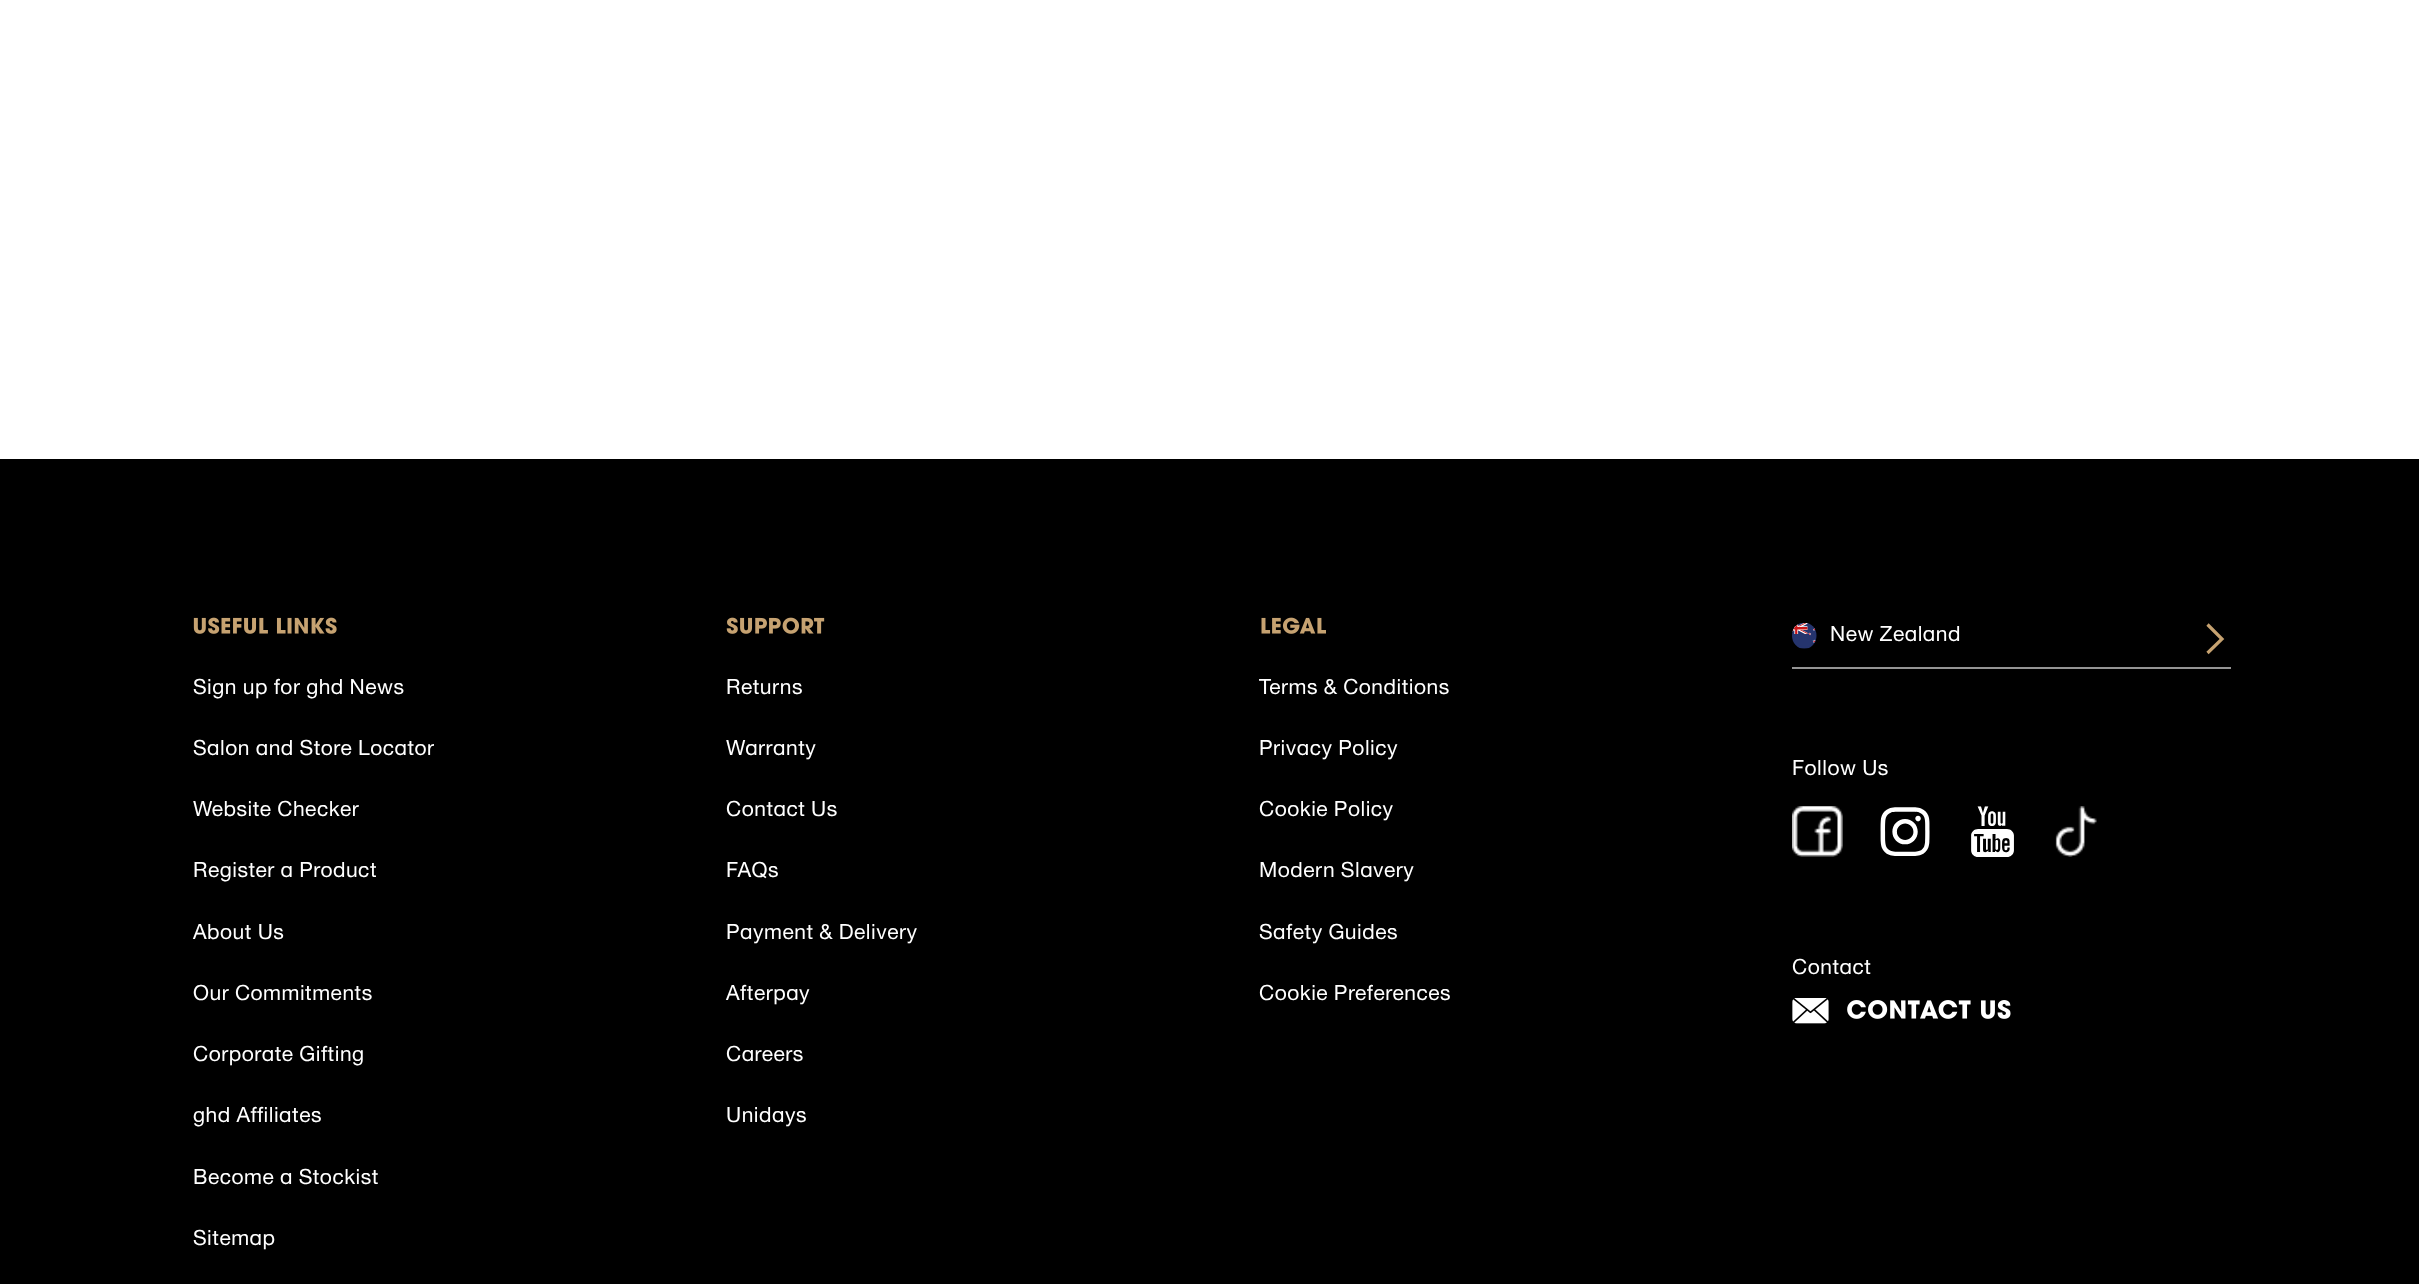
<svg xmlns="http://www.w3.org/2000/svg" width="2419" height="1284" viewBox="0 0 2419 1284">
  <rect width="100%" height="100%" fill="rgb(255,255,255)"/>
  <rect x="0" y="459" width="2419" height="825" fill="rgb(0,0,0)"/>
  <image x="193" y="617" width="144" height="17" href="pic1.png"/>
  <g font-family="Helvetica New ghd" font-size="21" letter-spacing="0.5" fill="rgb(255,255,255)">
    <text x="193" y="694">Sign up for ghd News</text>
    <text x="193" y="755">Salon and Store Locator</text>
    <text x="193" y="816">Website Checker</text>
    <text x="193" y="877">Register a Product</text>
    <text x="193" y="939">About Us</text>
    <text x="193" y="1000">Our Commitments</text>
    <text x="193" y="1061">Corporate Gifting</text>
    <text x="193" y="1122">ghd Affiliates</text>
    <text x="193" y="1184">Become a Stockist</text>
    <text x="193" y="1245">Sitemap</text>
  </g>
  <image x="726" y="617" width="99" height="17" href="pic2.png"/>
  <g font-family="Helvetica New ghd" font-size="21" letter-spacing="0.5" fill="rgb(255,255,255)">
    <text x="726" y="694">Returns</text>
    <text x="726" y="755">Warranty</text>
    <text x="726" y="816">Contact Us</text>
    <text x="726" y="877">FAQs</text>
    <text x="726" y="939">Payment &amp; Delivery</text>
    <text x="726" y="1000">Afterpay</text>
    <text x="726" y="1061">Careers</text>
    <text x="726" y="1122">Unidays</text>
  </g>
  <image x="1261" y="617" width="65" height="17" href="pic3.png"/>
  <g font-family="Helvetica New ghd" font-size="21" letter-spacing="0.5" fill="rgb(255,255,255)">
    <text x="1259" y="694">Terms &amp; Conditions</text>
    <text x="1259" y="755">Privacy Policy</text>
    <text x="1259" y="816">Cookie Policy</text>
    <text x="1259" y="877">Modern Slavery</text>
    <text x="1259" y="939">Safety Guides</text>
    <text x="1259" y="1000">Cookie Preferences</text>
  </g>
  <rect x="1792" y="667" width="439" height="2" fill="rgb(148,148,148)"/>
  <image x="1792" y="623" width="25" height="26" href="pic4.png"/>
  <text x="1830" y="641" font-family="Helvetica New ghd" font-size="21" letter-spacing="0.5" fill="rgb(255,255,255)">New Zealand</text>
  <path d="M2207.5 624.5L2222 639L2207.5 653" fill="none" stroke="rgb(198,162,112)" stroke-width="3.2"/>
  <text x="1792" y="775" font-family="Helvetica New ghd" font-size="21" letter-spacing="0.5" fill="rgb(255,255,255)">Follow Us</text>
  <image x="1792" y="806" width="51" height="51" href="pic5.png"/>
  <image x="1880" y="807" width="50" height="49" href="pic6.png"/>
  <image x="1971" y="806" width="43" height="51" href="pic7.png"/>
  <image x="2055" y="806" width="42" height="51" href="pic8.png"/>
  <text x="1792" y="974" font-family="Helvetica New ghd" font-size="21" letter-spacing="0.5" fill="rgb(255,255,255)">Contact</text>
  <image x="1792" y="998" width="37" height="26" href="pic9.png"/>
  <image x="1847" y="1000" width="164" height="19" href="pic10.png"/>
</svg>
